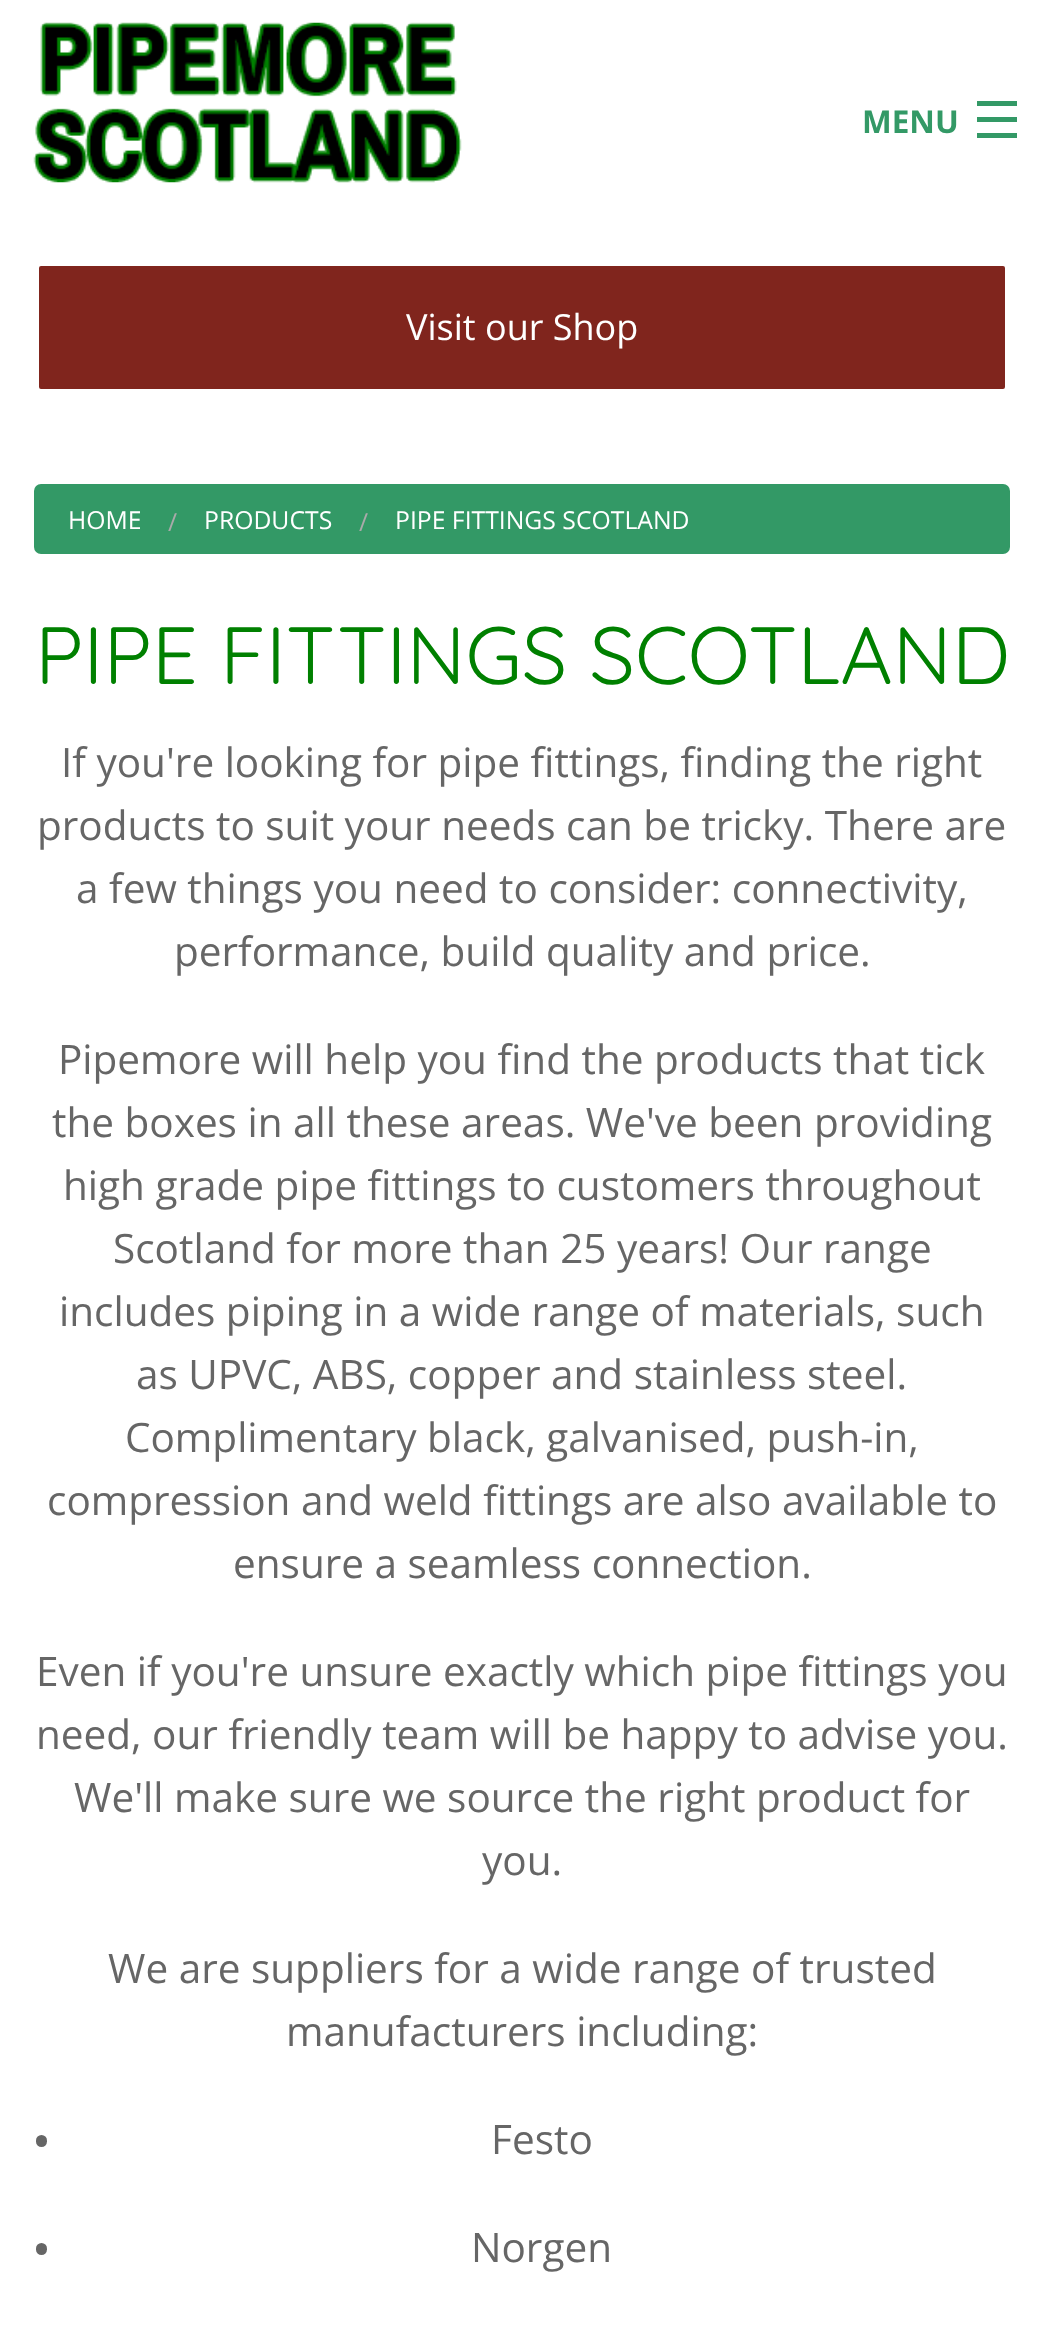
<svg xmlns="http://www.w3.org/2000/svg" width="1044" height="2341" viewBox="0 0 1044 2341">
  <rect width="100%" height="100%" fill="rgb(255,255,255)"/>
  <image x="33" y="22" width="429" height="161" href="pic1.png"/>
  <text x="862" y="133" font-family="Open Sans" font-size="31.5" font-weight="bold" fill="rgb(51,153,102)">MENU</text>
  <rect x="977" y="133" width="40" height="5" fill="rgb(51,153,102)"/>
  <rect x="977" y="117" width="40" height="5" fill="rgb(51,153,102)"/>
  <rect x="977" y="101" width="40" height="5" fill="rgb(51,153,102)"/>
  <rect x="36.5" y="263.5" width="971" height="128" rx="4.5" fill="rgb(128,37,29)" stroke="rgb(255,255,255)" stroke-width="5"/>
  <text x="406" y="340" font-family="Open Sans" font-size="36" fill="rgb(255,255,255)">Visit our Shop</text>
  <rect x="35" y="485" width="974" height="68" rx="6" fill="rgb(51,153,102)" stroke="rgb(51,153,102)" stroke-width="2"/>
  <text x="68" y="529" font-family="Open Sans" font-size="24.75" fill="rgb(255,255,255)">HOME</text>
  <text x="168" y="531" font-family="Open Sans" font-size="24.75" fill="rgb(170,170,170)">/</text>
  <text x="204" y="529" font-family="Open Sans" font-size="24.75" fill="rgb(255,255,255)">PRODUCTS</text>
  <text x="359" y="531" font-family="Open Sans" font-size="24.75" fill="rgb(170,170,170)">/</text>
  <text x="395" y="529" font-family="Open Sans" font-size="24.75" fill="rgb(255,255,255)">PIPE FITTINGS SCOTLAND</text>
  <text x="35" y="684" font-family="Quicksand" font-size="81" fill="rgb(0,128,0)">PIPE FITTINGS SCOTLAND</text>
  <g font-family="Open Sans" font-size="40.5" fill="rgb(102,102,102)">
    <text x="61" y="777">If you're looking for pipe fittings, finding the right</text>
    <text x="37" y="840">products to suit your needs can be tricky. There are</text>
    <text x="76" y="903">a few things you need to consider: connectivity,</text>
    <text x="174" y="966">performance, build quality and price.</text>
    <text x="58" y="1074">Pipemore will help you find the products that tick</text>
    <text x="52" y="1137">the boxes in all these areas. We've been providing</text>
    <text x="63" y="1200">high grade pipe fittings to customers throughout</text>
    <text x="113" y="1263">Scotland for more than 25 years! Our range</text>
    <text x="59" y="1326">includes piping in a wide range of materials, such</text>
    <text x="136" y="1389">as UPVC, ABS, copper and stainless steel.</text>
    <text x="125" y="1452">Complimentary black, galvanised, push-in,</text>
    <text x="47" y="1515">compression and weld fittings are also available to</text>
    <text x="233" y="1578">ensure a seamless connection.</text>
    <text>
      <tspan x="36" y="1686">Even if you're unsure exactly which pipe fittings you</tspan>
      <tspan x="36" y="1749">need, our friendly team will be happy to advise you.</tspan>
    </text>
    <text x="74" y="1812">We'll make sure we source the right product for</text>
    <text x="482" y="1875">you.</text>
    <text x="108" y="1983">We are suppliers for a wide range of trusted</text>
    <text x="286" y="2046">manufacturers including:</text>
  </g>
  <rect x="36" y="2135" width="11" height="12" rx="5.5" fill="rgb(102,102,102)"/>
  <text x="491" y="2154" font-family="Open Sans" font-size="40.5" fill="rgb(102,102,102)">Festo</text>
  <rect x="36" y="2243" width="11" height="12" rx="5.5" fill="rgb(102,102,102)"/>
  <text x="471" y="2262" font-family="Open Sans" font-size="40.5" fill="rgb(102,102,102)">Norgen</text>
</svg>
